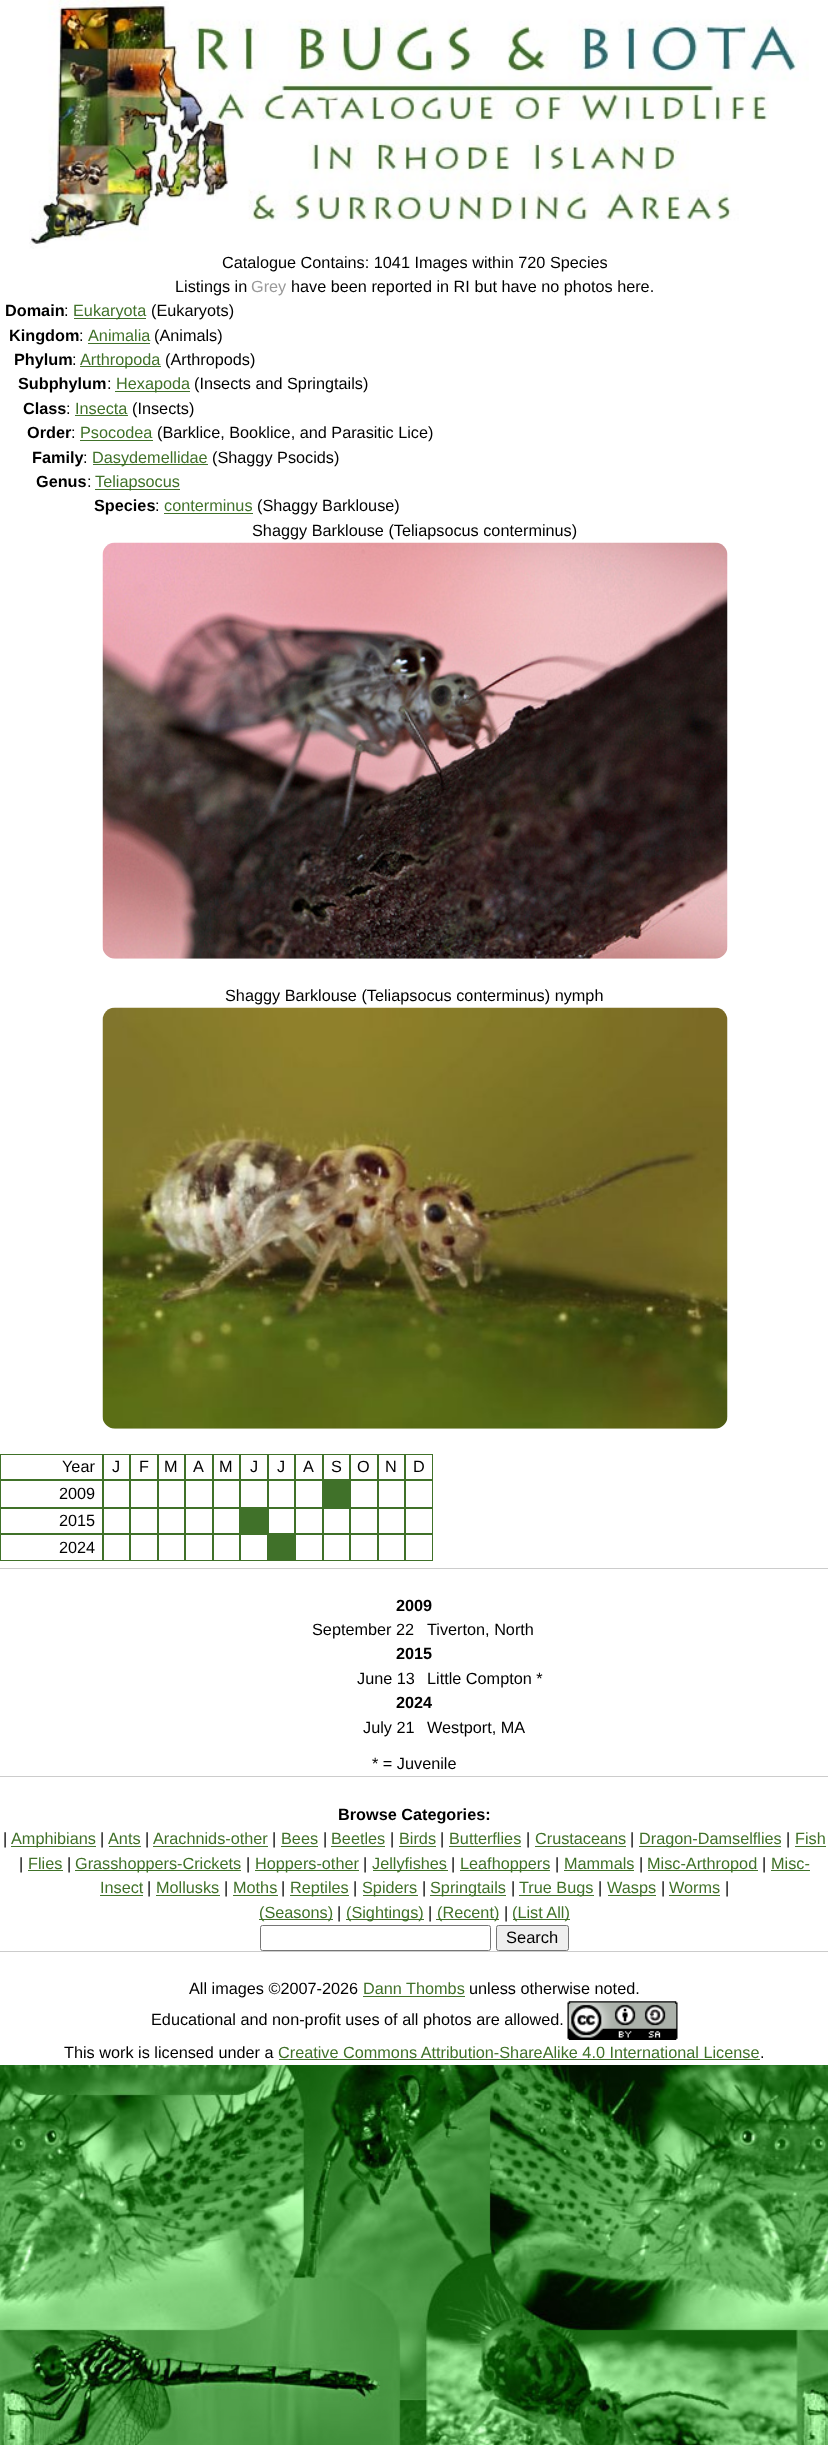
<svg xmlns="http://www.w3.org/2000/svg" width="828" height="2445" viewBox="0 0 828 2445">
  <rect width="100%" height="100%" fill="rgb(255,255,255)"/>
  <image x="0" y="2065" width="828" height="380" href="pic1.png"/>
  <image x="29" y="0" width="780" height="249" href="pic2.png"/>
  <g font-family="Liberation Sans" font-size="16.25" fill="rgb(0,0,0)">
    <text x="222" y="268">Catalogue Contains: 1041 Images within 720 Species</text>
    <text x="175" y="292">Listings in</text>
  </g>
  <text x="251" y="292" font-family="Liberation Sans" font-size="16.25" fill="rgb(153,153,153)">Grey</text>
  <text x="291" y="292" font-family="Liberation Sans" font-size="16.25" fill="rgb(0,0,0)">have been reported in RI but have no photos here.</text>
  <text x="5" y="316" font-family="Liberation Sans" font-size="16.25" font-weight="bold" fill="rgb(0,0,0)">Domain</text>
  <text x="64" y="316" font-family="Liberation Sans" font-size="16.25" fill="rgb(0,0,0)">:</text>
  <rect x="74" y="318" width="72" height="1" fill="rgb(64,113,41)"/>
  <text x="73" y="316" font-family="Liberation Sans" font-size="16.25" fill="rgb(64,113,41)">Eukaryota</text>
  <text x="151" y="316" font-family="Liberation Sans" font-size="16.25" fill="rgb(0,0,0)">(Eukaryots)</text>
  <text x="9" y="341" font-family="Liberation Sans" font-size="16.25" font-weight="bold" fill="rgb(0,0,0)">Kingdom</text>
  <text x="79" y="341" font-family="Liberation Sans" font-size="16.25" fill="rgb(0,0,0)">:</text>
  <text x="88" y="341" font-family="Liberation Sans" font-size="16.25" fill="rgb(64,113,41)">Animalia</text>
  <rect x="88" y="343" width="62" height="1" fill="rgb(64,113,41)"/>
  <text x="154" y="341" font-family="Liberation Sans" font-size="16.25" fill="rgb(0,0,0)">(Animals)</text>
  <text x="14" y="365" font-family="Liberation Sans" font-size="16.25" font-weight="bold" fill="rgb(0,0,0)">Phylum</text>
  <text x="72" y="365" font-family="Liberation Sans" font-size="16.25" fill="rgb(0,0,0)">:</text>
  <rect x="80" y="366" width="81" height="1" fill="rgb(64,113,41)"/>
  <text x="80" y="365" font-family="Liberation Sans" font-size="16.25" fill="rgb(64,113,41)">Arthropoda</text>
  <text x="165" y="365" font-family="Liberation Sans" font-size="16.25" fill="rgb(0,0,0)">(Arthropods)</text>
  <text x="18" y="389" font-family="Liberation Sans" font-size="16.25" font-weight="bold" fill="rgb(0,0,0)">Subphylum</text>
  <text x="107" y="389" font-family="Liberation Sans" font-size="16.25" fill="rgb(0,0,0)">:</text>
  <rect x="115" y="391" width="75" height="1" fill="rgb(64,113,41)"/>
  <text x="116" y="389" font-family="Liberation Sans" font-size="16.25" fill="rgb(64,113,41)">Hexapoda</text>
  <text x="194" y="389" font-family="Liberation Sans" font-size="16.25" fill="rgb(0,0,0)">(Insects and Springtails)</text>
  <text x="23" y="414" font-family="Liberation Sans" font-size="16.25" font-weight="bold" fill="rgb(0,0,0)">Class</text>
  <text x="66" y="414" font-family="Liberation Sans" font-size="16.25" fill="rgb(0,0,0)">:</text>
  <text x="75" y="414" font-family="Liberation Sans" font-size="16.25" fill="rgb(64,113,41)">Insecta</text>
  <rect x="75" y="415" width="53" height="1" fill="rgb(64,113,41)"/>
  <text x="132" y="414" font-family="Liberation Sans" font-size="16.25" fill="rgb(0,0,0)">(Insects)</text>
  <text x="27" y="438" font-family="Liberation Sans" font-size="16.25" font-weight="bold" fill="rgb(0,0,0)">Order</text>
  <text x="71" y="438" font-family="Liberation Sans" font-size="16.25" fill="rgb(0,0,0)">:</text>
  <text x="80" y="438" font-family="Liberation Sans" font-size="16.25" fill="rgb(64,113,41)">Psocodea</text>
  <rect x="80" y="440" width="73" height="1" fill="rgb(64,113,41)"/>
  <text x="157" y="438" font-family="Liberation Sans" font-size="16.25" fill="rgb(0,0,0)">(Barklice, Booklice, and Parasitic Lice)</text>
  <text x="32" y="463" font-family="Liberation Sans" font-size="16.25" font-weight="bold" fill="rgb(0,0,0)">Family</text>
  <text x="83" y="463" font-family="Liberation Sans" font-size="16.25" fill="rgb(0,0,0)">:</text>
  <rect x="93" y="464" width="115" height="1" fill="rgb(64,113,41)"/>
  <text x="92" y="463" font-family="Liberation Sans" font-size="16.25" fill="rgb(64,113,41)">Dasydemellidae</text>
  <text x="212" y="463" font-family="Liberation Sans" font-size="16.25" fill="rgb(0,0,0)">(Shaggy Psocids)</text>
  <text x="36" y="487" font-family="Liberation Sans" font-size="16.25" font-weight="bold" fill="rgb(0,0,0)">Genus</text>
  <text x="87" y="487" font-family="Liberation Sans" font-size="16.25" fill="rgb(0,0,0)">:</text>
  <rect x="95" y="489" width="85" height="1" fill="rgb(64,113,41)"/>
  <text x="95" y="487" font-family="Liberation Sans" font-size="16.25" fill="rgb(64,113,41)">Teliapsocus</text>
  <text x="94" y="511" font-family="Liberation Sans" font-size="16.25" font-weight="bold" fill="rgb(0,0,0)">Species</text>
  <text x="155" y="511" font-family="Liberation Sans" font-size="16.25" fill="rgb(0,0,0)">:</text>
  <text x="164" y="511" font-family="Liberation Sans" font-size="16.25" fill="rgb(64,113,41)">conterminus</text>
  <rect x="164" y="513" width="89" height="1" fill="rgb(64,113,41)"/>
  <g font-family="Liberation Sans" font-size="16.25" fill="rgb(0,0,0)">
    <text x="257" y="511">(Shaggy Barklouse)</text>
    <text x="252" y="536">Shaggy Barklouse (Teliapsocus conterminus)</text>
  </g>
  <image x="102" y="542" width="626" height="417" href="pic3.png"/>
  <text x="225" y="1001" font-family="Liberation Sans" font-size="16.25" fill="rgb(0,0,0)">Shaggy Barklouse (Teliapsocus conterminus) nymph</text>
  <image x="102" y="1007" width="626" height="422" href="pic4.png"/>
  <rect x="0.5" y="1454.5" width="102" height="25" fill="none" stroke="rgb(64,113,41)"/>
  <text x="62" y="1472" font-family="Liberation Sans" font-size="16.25" fill="rgb(0,0,0)">Year</text>
  <rect x="103.5" y="1454.5" width="26" height="25" fill="none" stroke="rgb(64,113,41)"/>
  <text x="112" y="1472" font-family="Liberation Sans" font-size="16.25" fill="rgb(0,0,0)">J</text>
  <rect x="130.5" y="1454.5" width="27" height="25" fill="none" stroke="rgb(64,113,41)"/>
  <text x="139" y="1472" font-family="Liberation Sans" font-size="16.25" fill="rgb(0,0,0)">F</text>
  <rect x="158.5" y="1454.5" width="26" height="25" fill="none" stroke="rgb(64,113,41)"/>
  <text x="164" y="1472" font-family="Liberation Sans" font-size="16.25" fill="rgb(0,0,0)">M</text>
  <rect x="185.5" y="1454.5" width="27" height="25" fill="none" stroke="rgb(64,113,41)"/>
  <text x="193" y="1472" font-family="Liberation Sans" font-size="16.25" fill="rgb(0,0,0)">A</text>
  <rect x="213.5" y="1454.5" width="26" height="25" fill="none" stroke="rgb(64,113,41)"/>
  <text x="219" y="1472" font-family="Liberation Sans" font-size="16.25" fill="rgb(0,0,0)">M</text>
  <rect x="240.5" y="1454.5" width="27" height="25" fill="none" stroke="rgb(64,113,41)"/>
  <text x="250" y="1472" font-family="Liberation Sans" font-size="16.25" fill="rgb(0,0,0)">J</text>
  <rect x="268.5" y="1454.5" width="26" height="25" fill="none" stroke="rgb(64,113,41)"/>
  <text x="277" y="1472" font-family="Liberation Sans" font-size="16.25" fill="rgb(0,0,0)">J</text>
  <rect x="295.5" y="1454.5" width="27" height="25" fill="none" stroke="rgb(64,113,41)"/>
  <text x="303" y="1472" font-family="Liberation Sans" font-size="16.25" fill="rgb(0,0,0)">A</text>
  <rect x="323.5" y="1454.5" width="26" height="25" fill="none" stroke="rgb(64,113,41)"/>
  <text x="331" y="1472" font-family="Liberation Sans" font-size="16.25" fill="rgb(0,0,0)">S</text>
  <rect x="350.5" y="1454.5" width="27" height="25" fill="none" stroke="rgb(64,113,41)"/>
  <text x="357" y="1472" font-family="Liberation Sans" font-size="16.25" fill="rgb(0,0,0)">O</text>
  <rect x="378.5" y="1454.5" width="26" height="25" fill="none" stroke="rgb(64,113,41)"/>
  <text x="385" y="1472" font-family="Liberation Sans" font-size="16.25" fill="rgb(0,0,0)">N</text>
  <rect x="405.5" y="1454.5" width="27" height="25" fill="none" stroke="rgb(64,113,41)"/>
  <text x="413" y="1472" font-family="Liberation Sans" font-size="16.25" fill="rgb(0,0,0)">D</text>
  <rect x="0.5" y="1480.5" width="102" height="27" fill="none" stroke="rgb(64,113,41)"/>
  <text x="59" y="1499" font-family="Liberation Sans" font-size="16.25" fill="rgb(0,0,0)">2009</text>
  <rect x="103.5" y="1480.5" width="26" height="27" fill="none" stroke="rgb(64,113,41)"/>
  <rect x="130.5" y="1480.5" width="27" height="27" fill="none" stroke="rgb(64,113,41)"/>
  <rect x="158.5" y="1480.5" width="26" height="27" fill="none" stroke="rgb(64,113,41)"/>
  <rect x="185.5" y="1480.5" width="27" height="27" fill="none" stroke="rgb(64,113,41)"/>
  <rect x="213.5" y="1480.5" width="26" height="27" fill="none" stroke="rgb(64,113,41)"/>
  <rect x="240.5" y="1480.5" width="27" height="27" fill="none" stroke="rgb(64,113,41)"/>
  <rect x="268.5" y="1480.5" width="26" height="27" fill="none" stroke="rgb(64,113,41)"/>
  <rect x="295.5" y="1480.5" width="27" height="27" fill="none" stroke="rgb(64,113,41)"/>
  <rect x="323" y="1480" width="27" height="28" fill="rgb(64,113,41)"/>
  <rect x="350.5" y="1480.5" width="27" height="27" fill="none" stroke="rgb(64,113,41)"/>
  <rect x="378.5" y="1480.5" width="26" height="27" fill="none" stroke="rgb(64,113,41)"/>
  <rect x="405.5" y="1480.5" width="27" height="27" fill="none" stroke="rgb(64,113,41)"/>
  <rect x="0.5" y="1508.5" width="102" height="25" fill="none" stroke="rgb(64,113,41)"/>
  <text x="59" y="1526" font-family="Liberation Sans" font-size="16.25" fill="rgb(0,0,0)">2015</text>
  <rect x="103.5" y="1508.5" width="26" height="25" fill="none" stroke="rgb(64,113,41)"/>
  <rect x="130.5" y="1508.5" width="27" height="25" fill="none" stroke="rgb(64,113,41)"/>
  <rect x="158.5" y="1508.5" width="26" height="25" fill="none" stroke="rgb(64,113,41)"/>
  <rect x="185.5" y="1508.5" width="27" height="25" fill="none" stroke="rgb(64,113,41)"/>
  <rect x="213.5" y="1508.5" width="26" height="25" fill="none" stroke="rgb(64,113,41)"/>
  <rect x="240" y="1508" width="28" height="26" fill="rgb(64,113,41)"/>
  <rect x="268.5" y="1508.5" width="26" height="25" fill="none" stroke="rgb(64,113,41)"/>
  <rect x="295.5" y="1508.5" width="27" height="25" fill="none" stroke="rgb(64,113,41)"/>
  <rect x="323.5" y="1508.5" width="26" height="25" fill="none" stroke="rgb(64,113,41)"/>
  <rect x="350.5" y="1508.5" width="27" height="25" fill="none" stroke="rgb(64,113,41)"/>
  <rect x="378.5" y="1508.5" width="26" height="25" fill="none" stroke="rgb(64,113,41)"/>
  <rect x="405.5" y="1508.5" width="27" height="25" fill="none" stroke="rgb(64,113,41)"/>
  <rect x="0.5" y="1534.5" width="102" height="26" fill="none" stroke="rgb(64,113,41)"/>
  <text x="59" y="1553" font-family="Liberation Sans" font-size="16.25" fill="rgb(0,0,0)">2024</text>
  <rect x="103.5" y="1534.5" width="26" height="26" fill="none" stroke="rgb(64,113,41)"/>
  <rect x="130.5" y="1534.5" width="27" height="26" fill="none" stroke="rgb(64,113,41)"/>
  <rect x="158.5" y="1534.5" width="26" height="26" fill="none" stroke="rgb(64,113,41)"/>
  <rect x="185.5" y="1534.5" width="27" height="26" fill="none" stroke="rgb(64,113,41)"/>
  <rect x="213.5" y="1534.5" width="26" height="26" fill="none" stroke="rgb(64,113,41)"/>
  <rect x="240.5" y="1534.5" width="27" height="26" fill="none" stroke="rgb(64,113,41)"/>
  <rect x="268" y="1534" width="27" height="27" fill="rgb(64,113,41)"/>
  <rect x="295.5" y="1534.5" width="27" height="26" fill="none" stroke="rgb(64,113,41)"/>
  <rect x="323.5" y="1534.5" width="26" height="26" fill="none" stroke="rgb(64,113,41)"/>
  <rect x="350.5" y="1534.5" width="27" height="26" fill="none" stroke="rgb(64,113,41)"/>
  <rect x="378.5" y="1534.5" width="26" height="26" fill="none" stroke="rgb(64,113,41)"/>
  <rect x="405.5" y="1534.5" width="27" height="26" fill="none" stroke="rgb(64,113,41)"/>
  <rect x="0" y="1568" width="828" height="1" fill="rgb(204,204,204)"/>
  <text x="396" y="1611" font-family="Liberation Sans" font-size="16.25" font-weight="bold" fill="rgb(0,0,0)">2009</text>
  <g font-family="Liberation Sans" font-size="16.25" fill="rgb(0,0,0)">
    <text x="312" y="1635">September 22</text>
    <text x="427" y="1635">Tiverton, North</text>
  </g>
  <text x="396" y="1659" font-family="Liberation Sans" font-size="16.25" font-weight="bold" fill="rgb(0,0,0)">2015</text>
  <g font-family="Liberation Sans" font-size="16.25" fill="rgb(0,0,0)">
    <text x="357" y="1684">June 13</text>
    <text x="427" y="1684">Little Compton *</text>
  </g>
  <text x="396" y="1708" font-family="Liberation Sans" font-size="16.25" font-weight="bold" fill="rgb(0,0,0)">2024</text>
  <g font-family="Liberation Sans" font-size="16.25" fill="rgb(0,0,0)">
    <text x="363" y="1733">July 21</text>
    <text x="427" y="1733">Westport, MA</text>
    <text x="372" y="1769">* = Juvenile</text>
  </g>
  <rect x="0" y="1776" width="828" height="1" fill="rgb(204,204,204)"/>
  <text x="338" y="1820" font-family="Liberation Sans" font-size="16.25" font-weight="bold" fill="rgb(0,0,0)">Browse Categories:</text>
  <text x="3" y="1844" font-family="Liberation Sans" font-size="16.25" fill="rgb(0,0,0)">|</text>
  <rect x="11" y="1846" width="85" height="1" fill="rgb(64,113,41)"/>
  <text x="11" y="1844" font-family="Liberation Sans" font-size="16.25" fill="rgb(64,113,41)">Amphibians</text>
  <text x="100" y="1844" font-family="Liberation Sans" font-size="16.25" fill="rgb(0,0,0)">|</text>
  <text x="108" y="1844" font-family="Liberation Sans" font-size="16.25" fill="rgb(64,113,41)">Ants</text>
  <rect x="109" y="1846" width="32" height="1" fill="rgb(64,113,41)"/>
  <text x="145" y="1844" font-family="Liberation Sans" font-size="16.25" fill="rgb(0,0,0)">|</text>
  <text x="153" y="1844" font-family="Liberation Sans" font-size="16.25" fill="rgb(64,113,41)">Arachnids-other</text>
  <rect x="153" y="1846" width="115" height="1" fill="rgb(64,113,41)"/>
  <text x="272" y="1844" font-family="Liberation Sans" font-size="16.25" fill="rgb(0,0,0)">|</text>
  <text x="281" y="1844" font-family="Liberation Sans" font-size="16.25" fill="rgb(64,113,41)">Bees</text>
  <rect x="281" y="1846" width="37" height="1" fill="rgb(64,113,41)"/>
  <text x="323" y="1844" font-family="Liberation Sans" font-size="16.25" fill="rgb(0,0,0)">|</text>
  <text x="331" y="1844" font-family="Liberation Sans" font-size="16.25" fill="rgb(64,113,41)">Beetles</text>
  <rect x="331" y="1846" width="54" height="1" fill="rgb(64,113,41)"/>
  <text x="390" y="1844" font-family="Liberation Sans" font-size="16.25" fill="rgb(0,0,0)">|</text>
  <text x="399" y="1844" font-family="Liberation Sans" font-size="16.25" fill="rgb(64,113,41)">Birds</text>
  <rect x="399" y="1846" width="37" height="1" fill="rgb(64,113,41)"/>
  <text x="440" y="1844" font-family="Liberation Sans" font-size="16.25" fill="rgb(0,0,0)">|</text>
  <text x="449" y="1844" font-family="Liberation Sans" font-size="16.25" fill="rgb(64,113,41)">Butterflies</text>
  <rect x="449" y="1846" width="72" height="1" fill="rgb(64,113,41)"/>
  <text x="526" y="1844" font-family="Liberation Sans" font-size="16.25" fill="rgb(0,0,0)">|</text>
  <text x="535" y="1844" font-family="Liberation Sans" font-size="16.25" fill="rgb(64,113,41)">Crustaceans</text>
  <rect x="535" y="1846" width="91" height="1" fill="rgb(64,113,41)"/>
  <text x="630" y="1844" font-family="Liberation Sans" font-size="16.25" fill="rgb(0,0,0)">|</text>
  <rect x="639" y="1846" width="142" height="1" fill="rgb(64,113,41)"/>
  <text x="639" y="1844" font-family="Liberation Sans" font-size="16.25" fill="rgb(64,113,41)">Dragon-Damselflies</text>
  <text x="786" y="1844" font-family="Liberation Sans" font-size="16.25" fill="rgb(0,0,0)">|</text>
  <text x="795" y="1844" font-family="Liberation Sans" font-size="16.25" fill="rgb(64,113,41)">Fish</text>
  <rect x="795" y="1846" width="31" height="1" fill="rgb(64,113,41)"/>
  <text x="19" y="1869" font-family="Liberation Sans" font-size="16.25" fill="rgb(0,0,0)">|</text>
  <text x="28" y="1869" font-family="Liberation Sans" font-size="16.25" fill="rgb(64,113,41)">Flies</text>
  <rect x="28" y="1870" width="35" height="1" fill="rgb(64,113,41)"/>
  <text x="67" y="1869" font-family="Liberation Sans" font-size="16.25" fill="rgb(0,0,0)">|</text>
  <rect x="75" y="1870" width="166" height="1" fill="rgb(64,113,41)"/>
  <text x="75" y="1869" font-family="Liberation Sans" font-size="16.25" fill="rgb(64,113,41)">Grasshoppers-Crickets</text>
  <text x="246" y="1869" font-family="Liberation Sans" font-size="16.25" fill="rgb(0,0,0)">|</text>
  <rect x="255" y="1870" width="104" height="1" fill="rgb(64,113,41)"/>
  <text x="255" y="1869" font-family="Liberation Sans" font-size="16.25" fill="rgb(64,113,41)">Hoppers-other</text>
  <text x="363" y="1869" font-family="Liberation Sans" font-size="16.25" fill="rgb(0,0,0)">|</text>
  <rect x="373" y="1870" width="75" height="1" fill="rgb(64,113,41)"/>
  <text x="372" y="1869" font-family="Liberation Sans" font-size="16.25" fill="rgb(64,113,41)">Jellyfishes</text>
  <text x="451" y="1869" font-family="Liberation Sans" font-size="16.25" fill="rgb(0,0,0)">|</text>
  <rect x="460" y="1870" width="90" height="1" fill="rgb(64,113,41)"/>
  <text x="460" y="1869" font-family="Liberation Sans" font-size="16.25" fill="rgb(64,113,41)">Leafhoppers</text>
  <text x="555" y="1869" font-family="Liberation Sans" font-size="16.25" fill="rgb(0,0,0)">|</text>
  <text x="564" y="1869" font-family="Liberation Sans" font-size="16.25" fill="rgb(64,113,41)">Mammals</text>
  <rect x="564" y="1870" width="70" height="1" fill="rgb(64,113,41)"/>
  <text x="639" y="1869" font-family="Liberation Sans" font-size="16.25" fill="rgb(0,0,0)">|</text>
  <rect x="648" y="1870" width="110" height="1" fill="rgb(64,113,41)"/>
  <text x="647" y="1869" font-family="Liberation Sans" font-size="16.25" fill="rgb(64,113,41)">Misc-Arthropod</text>
  <text x="762" y="1869" font-family="Liberation Sans" font-size="16.25" fill="rgb(0,0,0)">|</text>
  <text x="771" y="1869" font-family="Liberation Sans" font-size="16.25" fill="rgb(64,113,41)">Misc-</text>
  <rect x="771" y="1870" width="39" height="1" fill="rgb(64,113,41)"/>
  <text x="100" y="1893" font-family="Liberation Sans" font-size="16.25" fill="rgb(64,113,41)">Insect</text>
  <rect x="100" y="1895" width="43" height="1" fill="rgb(64,113,41)"/>
  <text x="147" y="1893" font-family="Liberation Sans" font-size="16.25" fill="rgb(0,0,0)">|</text>
  <text x="156" y="1893" font-family="Liberation Sans" font-size="16.25" fill="rgb(64,113,41)">Mollusks</text>
  <rect x="156" y="1895" width="64" height="1" fill="rgb(64,113,41)"/>
  <text x="224" y="1893" font-family="Liberation Sans" font-size="16.25" fill="rgb(0,0,0)">|</text>
  <text x="233" y="1893" font-family="Liberation Sans" font-size="16.25" fill="rgb(64,113,41)">Moths</text>
  <rect x="233" y="1895" width="45" height="1" fill="rgb(64,113,41)"/>
  <text x="281" y="1893" font-family="Liberation Sans" font-size="16.25" fill="rgb(0,0,0)">|</text>
  <rect x="290" y="1895" width="59" height="1" fill="rgb(64,113,41)"/>
  <text x="290" y="1893" font-family="Liberation Sans" font-size="16.25" fill="rgb(64,113,41)">Reptiles</text>
  <text x="353" y="1893" font-family="Liberation Sans" font-size="16.25" fill="rgb(0,0,0)">|</text>
  <rect x="363" y="1895" width="55" height="1" fill="rgb(64,113,41)"/>
  <text x="362" y="1893" font-family="Liberation Sans" font-size="16.25" fill="rgb(64,113,41)">Spiders</text>
  <text x="422" y="1893" font-family="Liberation Sans" font-size="16.25" fill="rgb(0,0,0)">|</text>
  <rect x="430" y="1895" width="76" height="1" fill="rgb(64,113,41)"/>
  <text x="430" y="1893" font-family="Liberation Sans" font-size="16.25" fill="rgb(64,113,41)">Springtails</text>
  <text x="511" y="1893" font-family="Liberation Sans" font-size="16.25" fill="rgb(0,0,0)">|</text>
  <rect x="519" y="1895" width="75" height="1" fill="rgb(64,113,41)"/>
  <text x="519" y="1893" font-family="Liberation Sans" font-size="16.25" fill="rgb(64,113,41)">True Bugs</text>
  <text x="598" y="1893" font-family="Liberation Sans" font-size="16.25" fill="rgb(0,0,0)">|</text>
  <rect x="608" y="1895" width="48" height="1" fill="rgb(64,113,41)"/>
  <text x="607" y="1893" font-family="Liberation Sans" font-size="16.25" fill="rgb(64,113,41)">Wasps</text>
  <text x="661" y="1893" font-family="Liberation Sans" font-size="16.25" fill="rgb(0,0,0)">|</text>
  <text x="669" y="1893" font-family="Liberation Sans" font-size="16.25" fill="rgb(64,113,41)">Worms</text>
  <rect x="669" y="1895" width="51" height="1" fill="rgb(64,113,41)"/>
  <text x="725" y="1893" font-family="Liberation Sans" font-size="16.25" fill="rgb(0,0,0)">|</text>
  <rect x="259" y="1919" width="74" height="1" fill="rgb(64,113,41)"/>
  <text x="259" y="1918" font-family="Liberation Sans" font-size="16.25" fill="rgb(64,113,41)">(Seasons)</text>
  <text x="337" y="1918" font-family="Liberation Sans" font-size="16.25" fill="rgb(0,0,0)">|</text>
  <rect x="346" y="1919" width="78" height="1" fill="rgb(64,113,41)"/>
  <text x="346" y="1918" font-family="Liberation Sans" font-size="16.25" fill="rgb(64,113,41)">(Sightings)</text>
  <text x="428" y="1918" font-family="Liberation Sans" font-size="16.25" fill="rgb(0,0,0)">|</text>
  <rect x="436" y="1919" width="63" height="1" fill="rgb(64,113,41)"/>
  <text x="437" y="1918" font-family="Liberation Sans" font-size="16.25" fill="rgb(64,113,41)">(Recent)</text>
  <text x="504" y="1918" font-family="Liberation Sans" font-size="16.25" fill="rgb(0,0,0)">|</text>
  <rect x="513" y="1919" width="57" height="1" fill="rgb(64,113,41)"/>
  <text x="512" y="1918" font-family="Liberation Sans" font-size="16.25" fill="rgb(64,113,41)">(List All)</text>
  <rect x="260.5" y="1925.5" width="230" height="25" rx="2" fill="none" stroke="rgb(118,118,118)"/>
  <rect x="496.5" y="1925.5" width="72" height="25" rx="2" fill="rgb(239,239,239)" stroke="rgb(118,118,118)"/>
  <text x="506" y="1943" font-family="Liberation Sans" font-size="16.5" fill="rgb(0,0,0)">Search</text>
  <rect x="0" y="1951" width="828" height="1" fill="rgb(204,204,204)"/>
  <text x="189" y="1994" font-family="Liberation Sans" font-size="16.25" fill="rgb(0,0,0)">All images ©2007-2026</text>
  <text x="363" y="1994" font-family="Liberation Sans" font-size="16.25" fill="rgb(64,113,41)">Dann Thombs</text>
  <rect x="363" y="1996" width="102" height="1" fill="rgb(64,113,41)"/>
  <g font-family="Liberation Sans" font-size="16.25" fill="rgb(0,0,0)">
    <text x="469" y="1994">unless otherwise noted.</text>
    <text x="151" y="2025">Educational and non-profit uses of all photos are allowed.</text>
  </g>
  <image x="567" y="2001" width="111" height="39" href="pic5.png"/>
  <text x="64" y="2058" font-family="Liberation Sans" font-size="16.25" fill="rgb(0,0,0)">This work is licensed under a</text>
  <text x="278" y="2058" font-family="Liberation Sans" font-size="16.25" fill="rgb(64,113,41)">Creative Commons Attribution-ShareAlike 4.0 International License</text>
  <rect x="279" y="2059" width="481" height="1" fill="rgb(64,113,41)"/>
  <text x="760" y="2058" font-family="Liberation Sans" font-size="16.25" fill="rgb(0,0,0)">.</text>
</svg>
